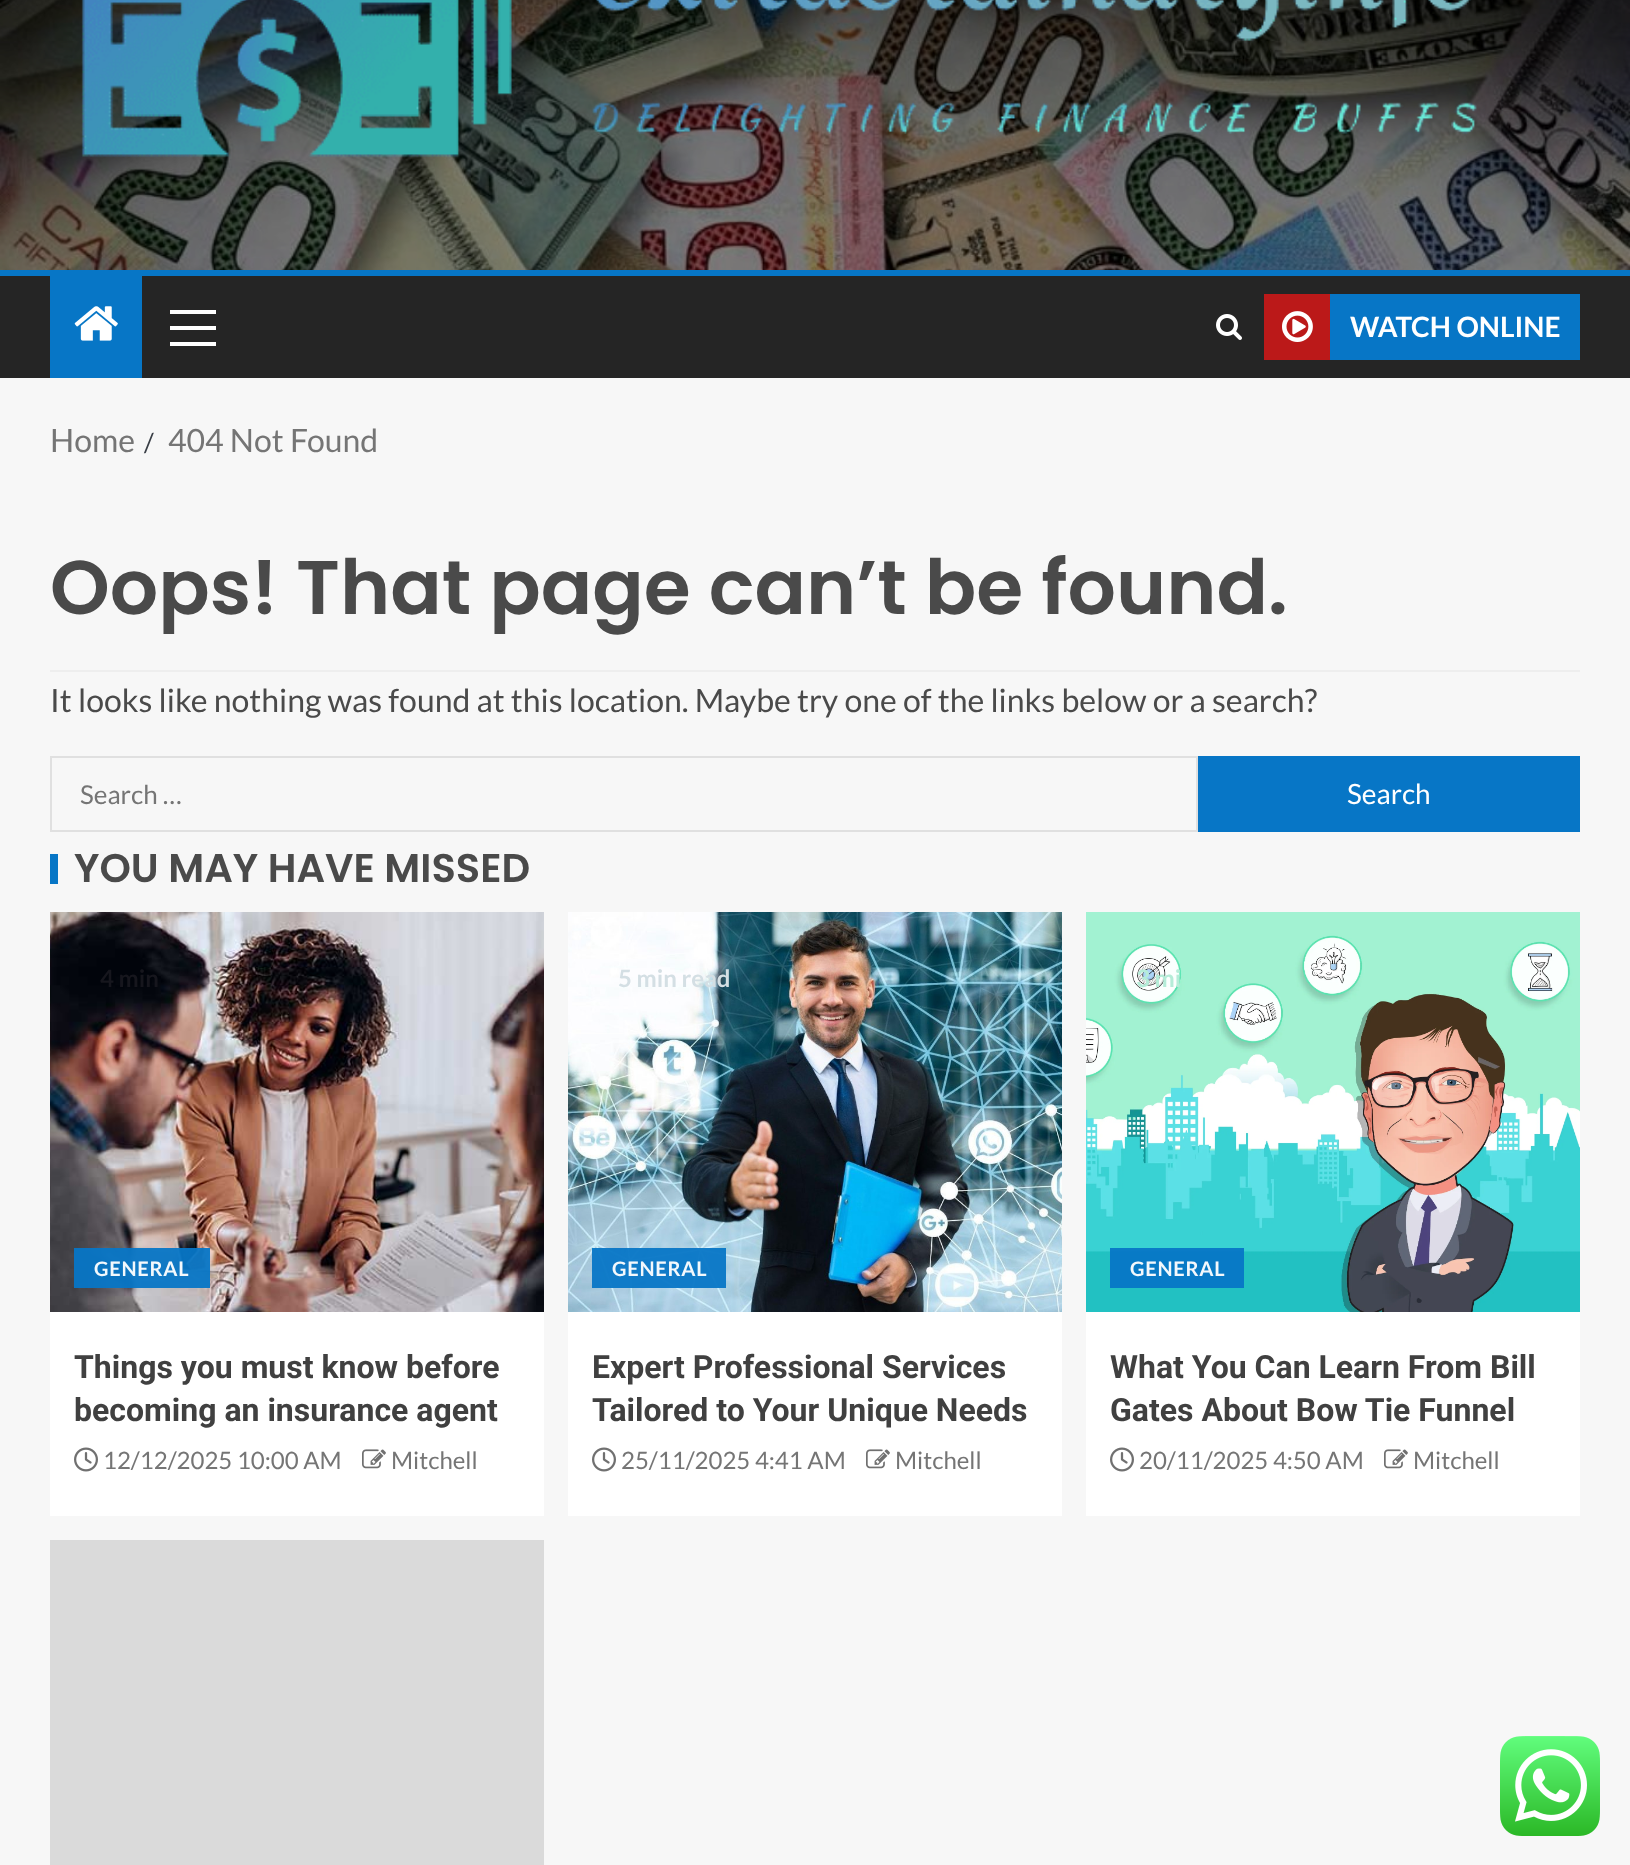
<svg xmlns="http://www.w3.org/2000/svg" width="1630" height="1865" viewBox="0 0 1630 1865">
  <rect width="100%" height="100%" fill="rgb(247,247,247)"/>
  <image x="0" y="0" width="1630" height="270" href="pic1.png"/>
  <image x="81" y="0" width="1396" height="158" href="pic2.png"/>
  <rect x="0" y="276" width="1630" height="102" fill="rgb(37,37,37)"/>
  <rect x="0" y="270" width="1630" height="6" fill="rgb(7,118,198)"/>
  <rect x="50" y="276" width="92" height="102" fill="rgb(7,118,198)"/>
  <image x="74" y="306" width="44" height="35" href="pic3.png"/>
  <rect x="170" y="326" width="46" height="4" fill="rgb(255,255,255)"/>
  <rect x="170" y="310" width="46" height="4" fill="rgb(255,255,255)"/>
  <rect x="170" y="342" width="46" height="4" fill="rgb(255,255,255)"/>
  <image x="1216" y="314" width="26" height="26" href="pic4.png"/>
  <rect x="1264" y="294" width="66" height="66" fill="rgb(187,25,25)"/>
  <image x="1282" y="311" width="31" height="31" href="pic5.png"/>
  <rect x="1330" y="294" width="250" height="66" fill="rgb(7,118,198)"/>
  <text x="1350" y="337" font-family="Lato" font-size="28" font-weight="bold" fill="rgb(255,255,255)">WATCH ONLINE</text>
  <text x="50" y="452" font-family="Lato" font-size="32" fill="rgb(117,117,117)">Home</text>
  <text x="144" y="452" font-family="Lato" font-size="26" fill="rgb(57,62,70)">/</text>
  <text x="168" y="452" font-family="Lato" font-size="32" fill="rgb(117,117,117)">404 Not Found</text>
  <rect x="50" y="670" width="1530" height="2" fill="rgb(238,238,238)"/>
  <text x="50" y="614" font-family="Poppins" font-size="76" font-weight="600" fill="rgb(74,74,74)">Oops! That page can’t be found.</text>
  <text x="50" y="712" font-family="Lato" font-size="32" fill="rgb(74,74,74)">It looks like nothing was found at this location. Maybe try one of the links below or a search?</text>
  <rect x="51" y="757" width="1146" height="74" fill="none" stroke="rgb(224,224,224)" stroke-width="2"/>
  <text x="80" y="804" font-family="Lato" font-size="26" fill="rgb(117,117,117)">Search …</text>
  <rect x="1198" y="756" width="382" height="76" fill="rgb(7,118,198)"/>
  <text x="1347" y="804" font-family="Lato" font-size="28" fill="rgb(255,255,255)">Search</text>
  <rect x="50" y="854" width="8" height="30" fill="rgb(7,118,198)"/>
  <text x="74" y="882" font-family="Poppins" font-size="40" font-weight="600" fill="rgb(74,74,74)">YOU MAY HAVE MISSED</text>
  <image x="50" y="912" width="494" height="400" href="pic6.png"/>
  <text x="100" y="987" font-family="Lato" font-size="24" font-weight="bold" fill="rgb(22,22,29)">4 min</text>
  <rect x="74" y="1248" width="136" height="40" fill="rgba(7,118,198,0.95)"/>
  <text x="94" y="1276" font-family="Lato" font-size="20" font-weight="bold" letter-spacing="0.75" fill="rgb(243,248,252)">GENERAL</text>
  <rect x="50" y="1312" width="494" height="204" fill="rgb(255,255,255)"/>
  <g font-family="Roboto" font-size="32" font-weight="bold" fill="rgb(64,64,64)">
    <text>
      <tspan x="74" y="1378">Things you must know before</tspan>
      <tspan x="74" y="1421">becoming an insurance agent</tspan>
    </text>
  </g>
  <image x="74" y="1447" width="24" height="25" href="pic7.png"/>
  <text x="103" y="1469" font-family="Lato" font-size="24" fill="rgb(117,117,117)">12/12/2025 10:00 AM</text>
  <image x="362" y="1449" width="24" height="20" href="pic8.png"/>
  <text x="391" y="1469" font-family="Lato" font-size="24" fill="rgb(117,117,117)">Mitchell</text>
  <image x="568" y="912" width="494" height="400" href="pic9.png"/>
  <text x="618" y="987" font-family="Lato" font-size="24" font-weight="bold" fill="rgb(212,223,228)">5 min read</text>
  <rect x="592" y="1248" width="134" height="40" fill="rgba(7,118,198,0.95)"/>
  <text x="612" y="1276" font-family="Lato" font-size="20" font-weight="bold" letter-spacing="0.75" fill="rgb(243,248,252)">GENERAL</text>
  <rect x="568" y="1312" width="494" height="204" fill="rgb(255,255,255)"/>
  <g font-family="Roboto" font-size="32" font-weight="bold" fill="rgb(64,64,64)">
    <text>
      <tspan x="592" y="1378">Expert Professional Services</tspan>
      <tspan x="592" y="1421">Tailored to Your Unique Needs</tspan>
    </text>
  </g>
  <image x="592" y="1447" width="24" height="25" href="pic7.png"/>
  <text x="621" y="1469" font-family="Lato" font-size="24" fill="rgb(117,117,117)">25/11/2025 4:41 AM</text>
  <image x="866" y="1449" width="24" height="20" href="pic8.png"/>
  <text x="895" y="1469" font-family="Lato" font-size="24" fill="rgb(117,117,117)">Mitchell</text>
  <image x="1086" y="912" width="494" height="400" href="pic10.png"/>
  <text x="1136" y="987" font-family="Lato" font-size="24" font-weight="bold" fill="rgb(181,236,216)">3 mi</text>
  <rect x="1110" y="1248" width="134" height="40" fill="rgba(7,118,198,0.95)"/>
  <text x="1130" y="1276" font-family="Lato" font-size="20" font-weight="bold" letter-spacing="0.75" fill="rgb(243,248,252)">GENERAL</text>
  <rect x="1086" y="1312" width="494" height="204" fill="rgb(255,255,255)"/>
  <g font-family="Roboto" font-size="32" font-weight="bold" fill="rgb(64,64,64)">
    <text>
      <tspan x="1110" y="1378">What You Can Learn From Bill</tspan>
      <tspan x="1110" y="1421">Gates About Bow Tie Funnel</tspan>
    </text>
  </g>
  <image x="1110" y="1447" width="24" height="25" href="pic7.png"/>
  <text x="1139" y="1469" font-family="Lato" font-size="24" fill="rgb(117,117,117)">20/11/2025 4:50 AM</text>
  <image x="1384" y="1449" width="24" height="20" href="pic8.png"/>
  <text x="1413" y="1469" font-family="Lato" font-size="24" fill="rgb(117,117,117)">Mitchell</text>
  <rect x="50" y="1540" width="494" height="325" fill="rgb(218,218,218)"/>
  <image x="1500" y="1736" width="100" height="100" href="pic11.png"/>
</svg>
